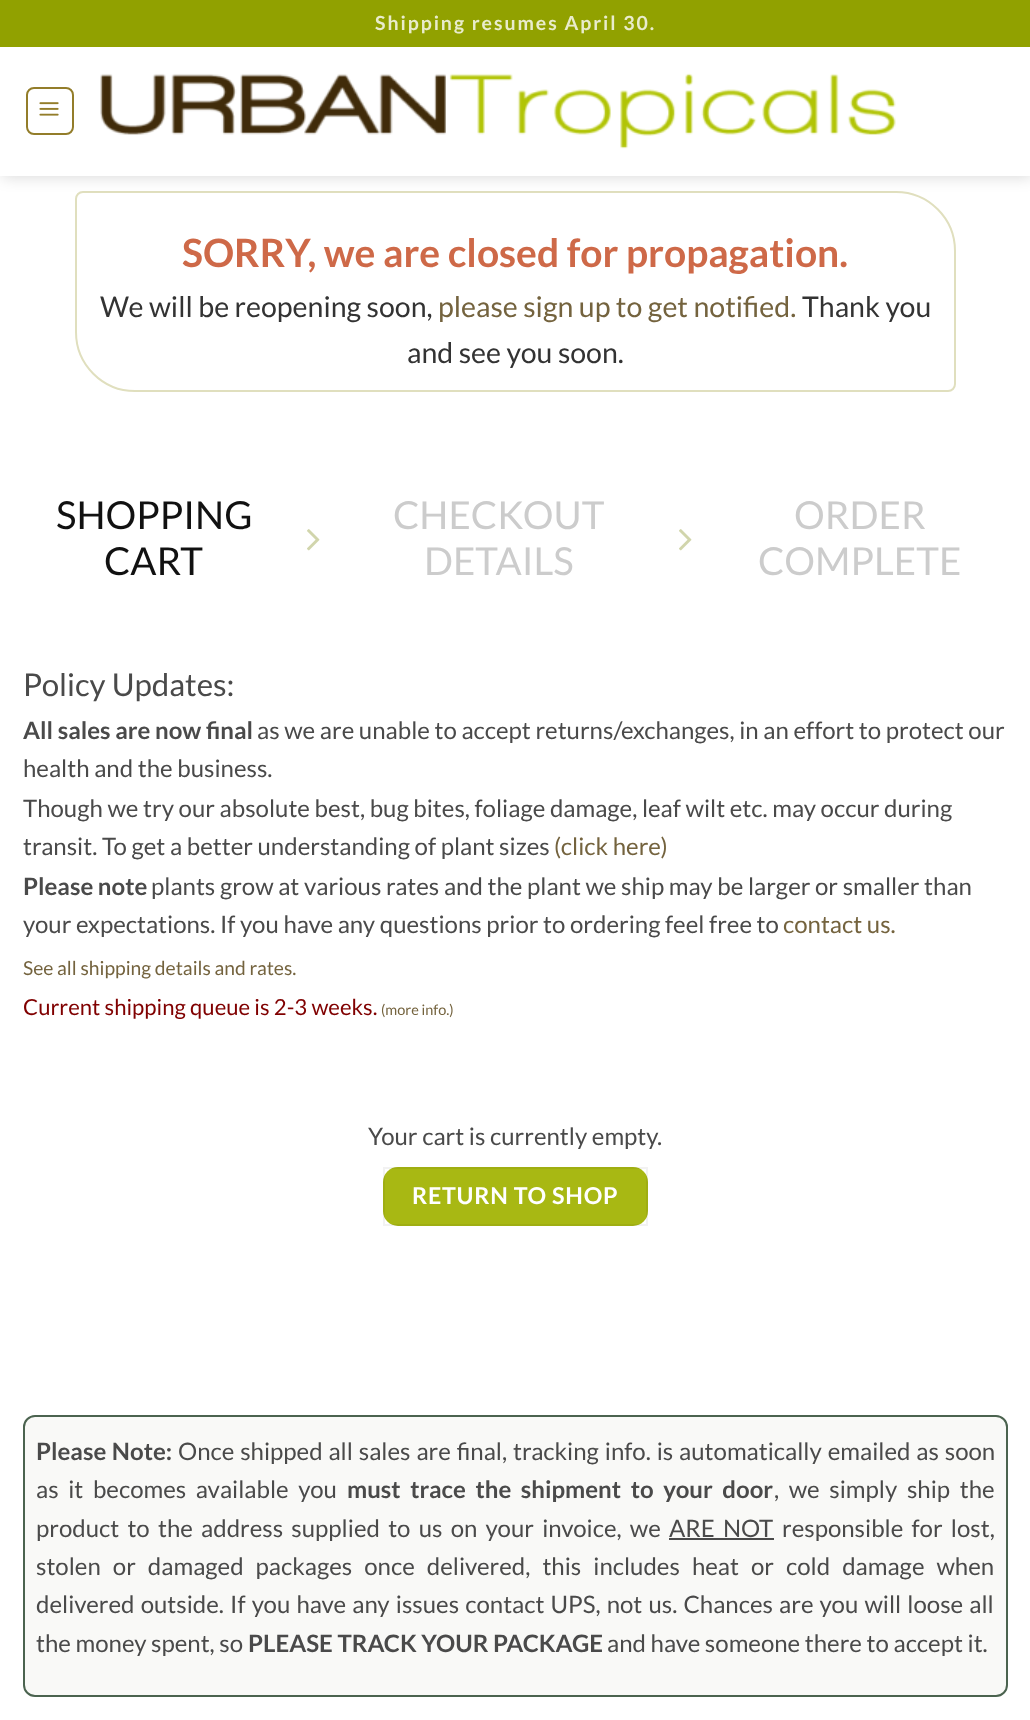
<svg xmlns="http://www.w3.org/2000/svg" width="1030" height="1720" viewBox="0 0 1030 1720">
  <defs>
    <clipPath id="clip1"><path d="M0 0H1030V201H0ZM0 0H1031V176H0Z" clip-rule="evenodd"/></clipPath>
  </defs>
  <rect width="100%" height="100%" fill="rgb(255,255,255)"/>
  <path d="M83 192H896C928.5 192 955 218.5 955 251V384C955 388 952 391 948 391H135C102.5 391 76 364.5 76 332V199C76 195 79 192 83 192Z" fill="none" stroke="rgb(224,223,190)" stroke-width="2"/>
  <g clip-path="url(#clip1)">
    <rect x="2" y="2" width="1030" height="175" fill="rgba(0,0,0,0.15)" filter="blur(7.5px)"/>
  </g>
  <rect x="0" y="0" width="1030" height="47" fill="rgb(145,161,0)"/>
  <text x="375" y="30" font-family="Lato" font-size="19.5" font-weight="bold" letter-spacing="1.95" fill="rgb(233,236,204)">Shipping resumes April 30.</text>
  <rect x="27" y="88" width="46" height="46" rx="7" fill="none" stroke="rgb(147,125,42)" stroke-width="2"/>
  <image x="39" y="102" width="20" height="14" href="pic1.png"/>
  <image x="100" y="73" width="796" height="76" href="pic2.png"/>
  <rect x="0" y="175" width="1030" height="1" fill="rgba(255,255,255,0.9)"/>
  <text x="182" y="267" font-family="Lato" font-size="39" font-weight="bold" fill="rgb(206,105,72)">SORRY, we are closed for propagation.</text>
  <text x="100" y="317" font-family="Lato" font-size="28.5" fill="rgb(51,51,51)">We will be reopening soon,</text>
  <text x="438" y="317" font-family="Lato" font-size="28.5" fill="rgb(116,99,62)">please sign up to get notified.</text>
  <g font-family="Lato" font-size="28.5" fill="rgb(51,51,51)">
    <text x="802" y="317">Thank you</text>
    <text x="407" y="363">and see you soon.</text>
  </g>
  <g font-family="Lato" font-size="38.5" fill="rgb(17,17,17)">
    <text x="56" y="529">SHOPPING</text>
    <text x="104" y="575">CART</text>
  </g>
  <image x="307" y="529" width="13" height="22" href="pic3.png"/>
  <g font-family="Lato" font-size="38.5" fill="rgb(204,204,204)">
    <text x="393" y="529">CHECKOUT</text>
    <text x="424" y="575">DETAILS</text>
  </g>
  <image x="679" y="529" width="13" height="22" href="pic3.png"/>
  <g font-family="Lato" font-size="38.5" fill="rgb(204,204,204)">
    <text x="794" y="529">ORDER</text>
    <text x="758" y="575">COMPLETE</text>
  </g>
  <text x="23" y="696" font-family="Lato" font-size="31.25" fill="rgb(74,74,74)">Policy Updates:</text>
  <text x="23" y="739" font-family="Lato" font-size="24" font-weight="bold" fill="rgb(74,74,74)">All sales are now final</text>
  <g font-family="Lato" font-size="24" fill="rgb(74,74,74)">
    <text x="257" y="739">as we are unable to accept returns/exchanges, in an effort to protect our</text>
    <text>
      <tspan x="23" y="777">health and the business.</tspan>
      <tspan x="23" y="817">Though we try our absolute best, bug bites, foliage damage, leaf wilt etc. may occur during</tspan>
      <tspan x="23" y="855">transit. To get a better understanding of plant sizes</tspan>
    </text>
  </g>
  <text x="554" y="855" font-family="Lato" font-size="24" fill="rgb(116,99,62)">(click here)</text>
  <text x="23" y="895" font-family="Lato" font-size="24" font-weight="bold" fill="rgb(74,74,74)">Please note</text>
  <g font-family="Lato" font-size="24" fill="rgb(74,74,74)">
    <text x="151" y="895">plants grow at various rates and the plant we ship may be larger or smaller than</text>
    <text x="23" y="933">your expectations. If you have any questions prior to ordering feel free to</text>
  </g>
  <text x="783" y="933" font-family="Lato" font-size="24" fill="rgb(116,99,62)">contact us.</text>
  <text x="23" y="975" font-family="Lato" font-size="19.25" fill="rgb(116,99,62)">See all shipping details and rates.</text>
  <text x="23" y="1015" font-family="Lato" font-size="22.1" fill="rgb(128,0,0)">Current shipping queue is 2-3 weeks.</text>
  <text x="381" y="1015" font-family="Lato" font-size="14.5" fill="rgb(116,99,62)">(more info.)</text>
  <text x="368" y="1145" font-family="Lato" font-size="24" fill="rgb(74,74,74)">Your cart is currently empty.</text>
  <rect x="383" y="1167" width="265" height="59" rx="15" fill="rgb(168,184,19)"/>
  <rect x="384" y="1168" width="263" height="57" fill="none" stroke="rgba(0,0,0,0.05)" stroke-width="2"/>
  <text x="412" y="1204" font-family="Lato" font-size="23.25" font-weight="bold" letter-spacing="0.75" fill="rgb(255,255,255)">RETURN TO SHOP</text>
  <rect x="24" y="1416" width="983" height="280" rx="11" fill="rgb(249,249,247)" stroke="rgb(75,99,79)" stroke-width="2"/>
  <text x="36" y="1460" word-spacing="1" font-family="Lato" font-size="24" font-weight="bold" fill="rgb(74,74,74)">Please Note:</text>
  <g font-family="Lato" font-size="24" fill="rgb(74,74,74)">
    <text x="178" y="1460" word-spacing="1.25">Once shipped all sales are final, tracking info. is automatically emailed as soon</text>
    <text x="36" y="1498" word-spacing="5">as it becomes available you</text>
  </g>
  <text x="347" y="1498" word-spacing="5" font-family="Lato" font-size="24" font-weight="bold" fill="rgb(74,74,74)">must trace the shipment to your door</text>
  <g font-family="Lato" font-size="24" fill="rgb(74,74,74)">
    <text x="774" y="1498" word-spacing="5">, we simply ship the</text>
    <text x="36" y="1537" word-spacing="3.6">product to the address supplied to us on your invoice, we</text>
    <text x="669" y="1537" word-spacing="3.6">ARE NOT</text>
  </g>
  <rect x="669" y="1538" width="105" height="2" fill="rgb(74,74,74)"/>
  <g font-family="Lato" font-size="24" fill="rgb(74,74,74)">
    <text x="782" y="1537" word-spacing="3.6">responsible for lost,</text>
    <text>
      <tspan x="36" y="1575" word-spacing="7.4">stolen or damaged packages once delivered, this includes heat or cold damage when</tspan>
      <tspan x="36" y="1613" word-spacing="1.5">delivered outside. If you have any issues contact UPS, not us. Chances are you will loose all</tspan>
      <tspan x="36" y="1652">the money spent, so</tspan>
    </text>
  </g>
  <text x="248" y="1652" font-family="Lato" font-size="24" font-weight="bold" fill="rgb(74,74,74)">PLEASE TRACK YOUR PACKAGE</text>
  <text x="607" y="1652" font-family="Lato" font-size="24" fill="rgb(74,74,74)">and have someone there to accept it.</text>
</svg>
